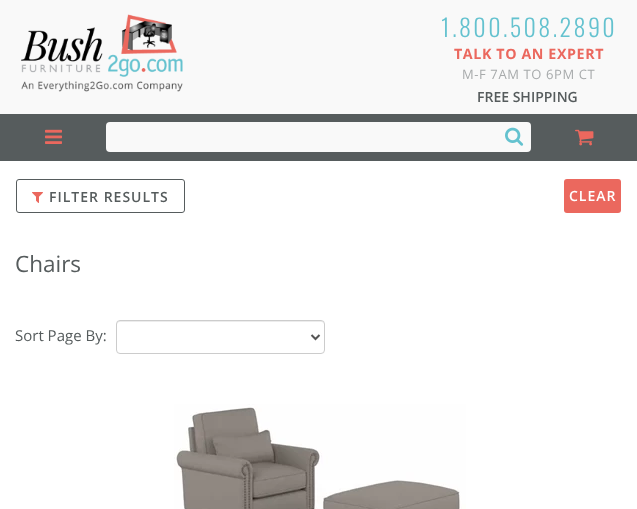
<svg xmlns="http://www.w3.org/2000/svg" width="637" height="509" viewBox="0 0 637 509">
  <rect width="100%" height="100%" fill="rgb(255,255,255)"/>
  <rect x="0" y="0" width="637" height="114" fill="rgb(249,249,249)"/>
  <image x="21" y="14" width="162" height="78" href="pic1.png"/>
  <text x="441" y="37" font-family="Oswald" font-size="24" font-weight="300" letter-spacing="2.4" fill="rgb(100,194,207)">1.800.508.2890</text>
  <text x="454" y="59" font-family="Open Sans" font-size="14.25" font-weight="bold" letter-spacing="0.6" fill="rgb(235,104,94)">TALK TO AN EXPERT</text>
  <text x="462" y="79" font-family="Open Sans" font-size="13" letter-spacing="0.6" fill="rgb(167,170,171)">M-F 7AM TO 6PM CT</text>
  <text x="477" y="102" font-family="Open Sans" font-size="14" font-weight="600" fill="rgb(86,92,93)">FREE SHIPPING</text>
  <rect x="0" y="114" width="637" height="47" fill="rgb(86,92,93)"/>
  <image x="45" y="129" width="17" height="15" href="pic2.png"/>
  <rect x="106" y="122" width="425" height="30" rx="4" fill="rgb(249,249,249)"/>
  <image x="505" y="127" width="19" height="19" href="pic3.png"/>
  <image x="575" y="129" width="19" height="17" href="pic4.png"/>
  <rect x="16.5" y="179.5" width="168" height="33" rx="2.5" fill="none" stroke="rgb(86,92,93)"/>
  <image x="32" y="192" width="11" height="11" href="pic5.png"/>
  <text x="49" y="202" font-family="Open Sans" font-size="14" font-weight="600" letter-spacing="1" fill="rgb(86,92,93)">FILTER RESULTS</text>
  <rect x="564" y="179" width="57" height="34" rx="3" fill="rgb(235,104,94)"/>
  <text x="569" y="201" font-family="Open Sans" font-size="14" font-weight="600" letter-spacing="1" fill="rgb(255,255,255)">CLEAR</text>
  <text x="15" y="272" font-family="Open Sans" font-size="22.5" fill="rgb(86,92,93)">Chairs</text>
  <text x="15" y="341" font-family="Open Sans" font-size="15" fill="rgb(86,92,93)">Sort Page By:</text>
  <path d="M120 322H321C323 322 324 323 324 325C324 323 323 321 321 321H119C117 322 117 323 117 325C117 323 118 322 120 322Z" fill="rgb(236,236,236)"/>
  <rect x="116.5" y="320.5" width="208" height="33" rx="3.5" fill="none" stroke="rgb(204,204,204)"/>
  <path d="M311.5 335L315.5 339L319.5 335" fill="none" stroke="rgb(85,85,85)" stroke-width="2"/>
  <image x="174" y="404" width="292" height="105" href="pic6.png"/>
</svg>
